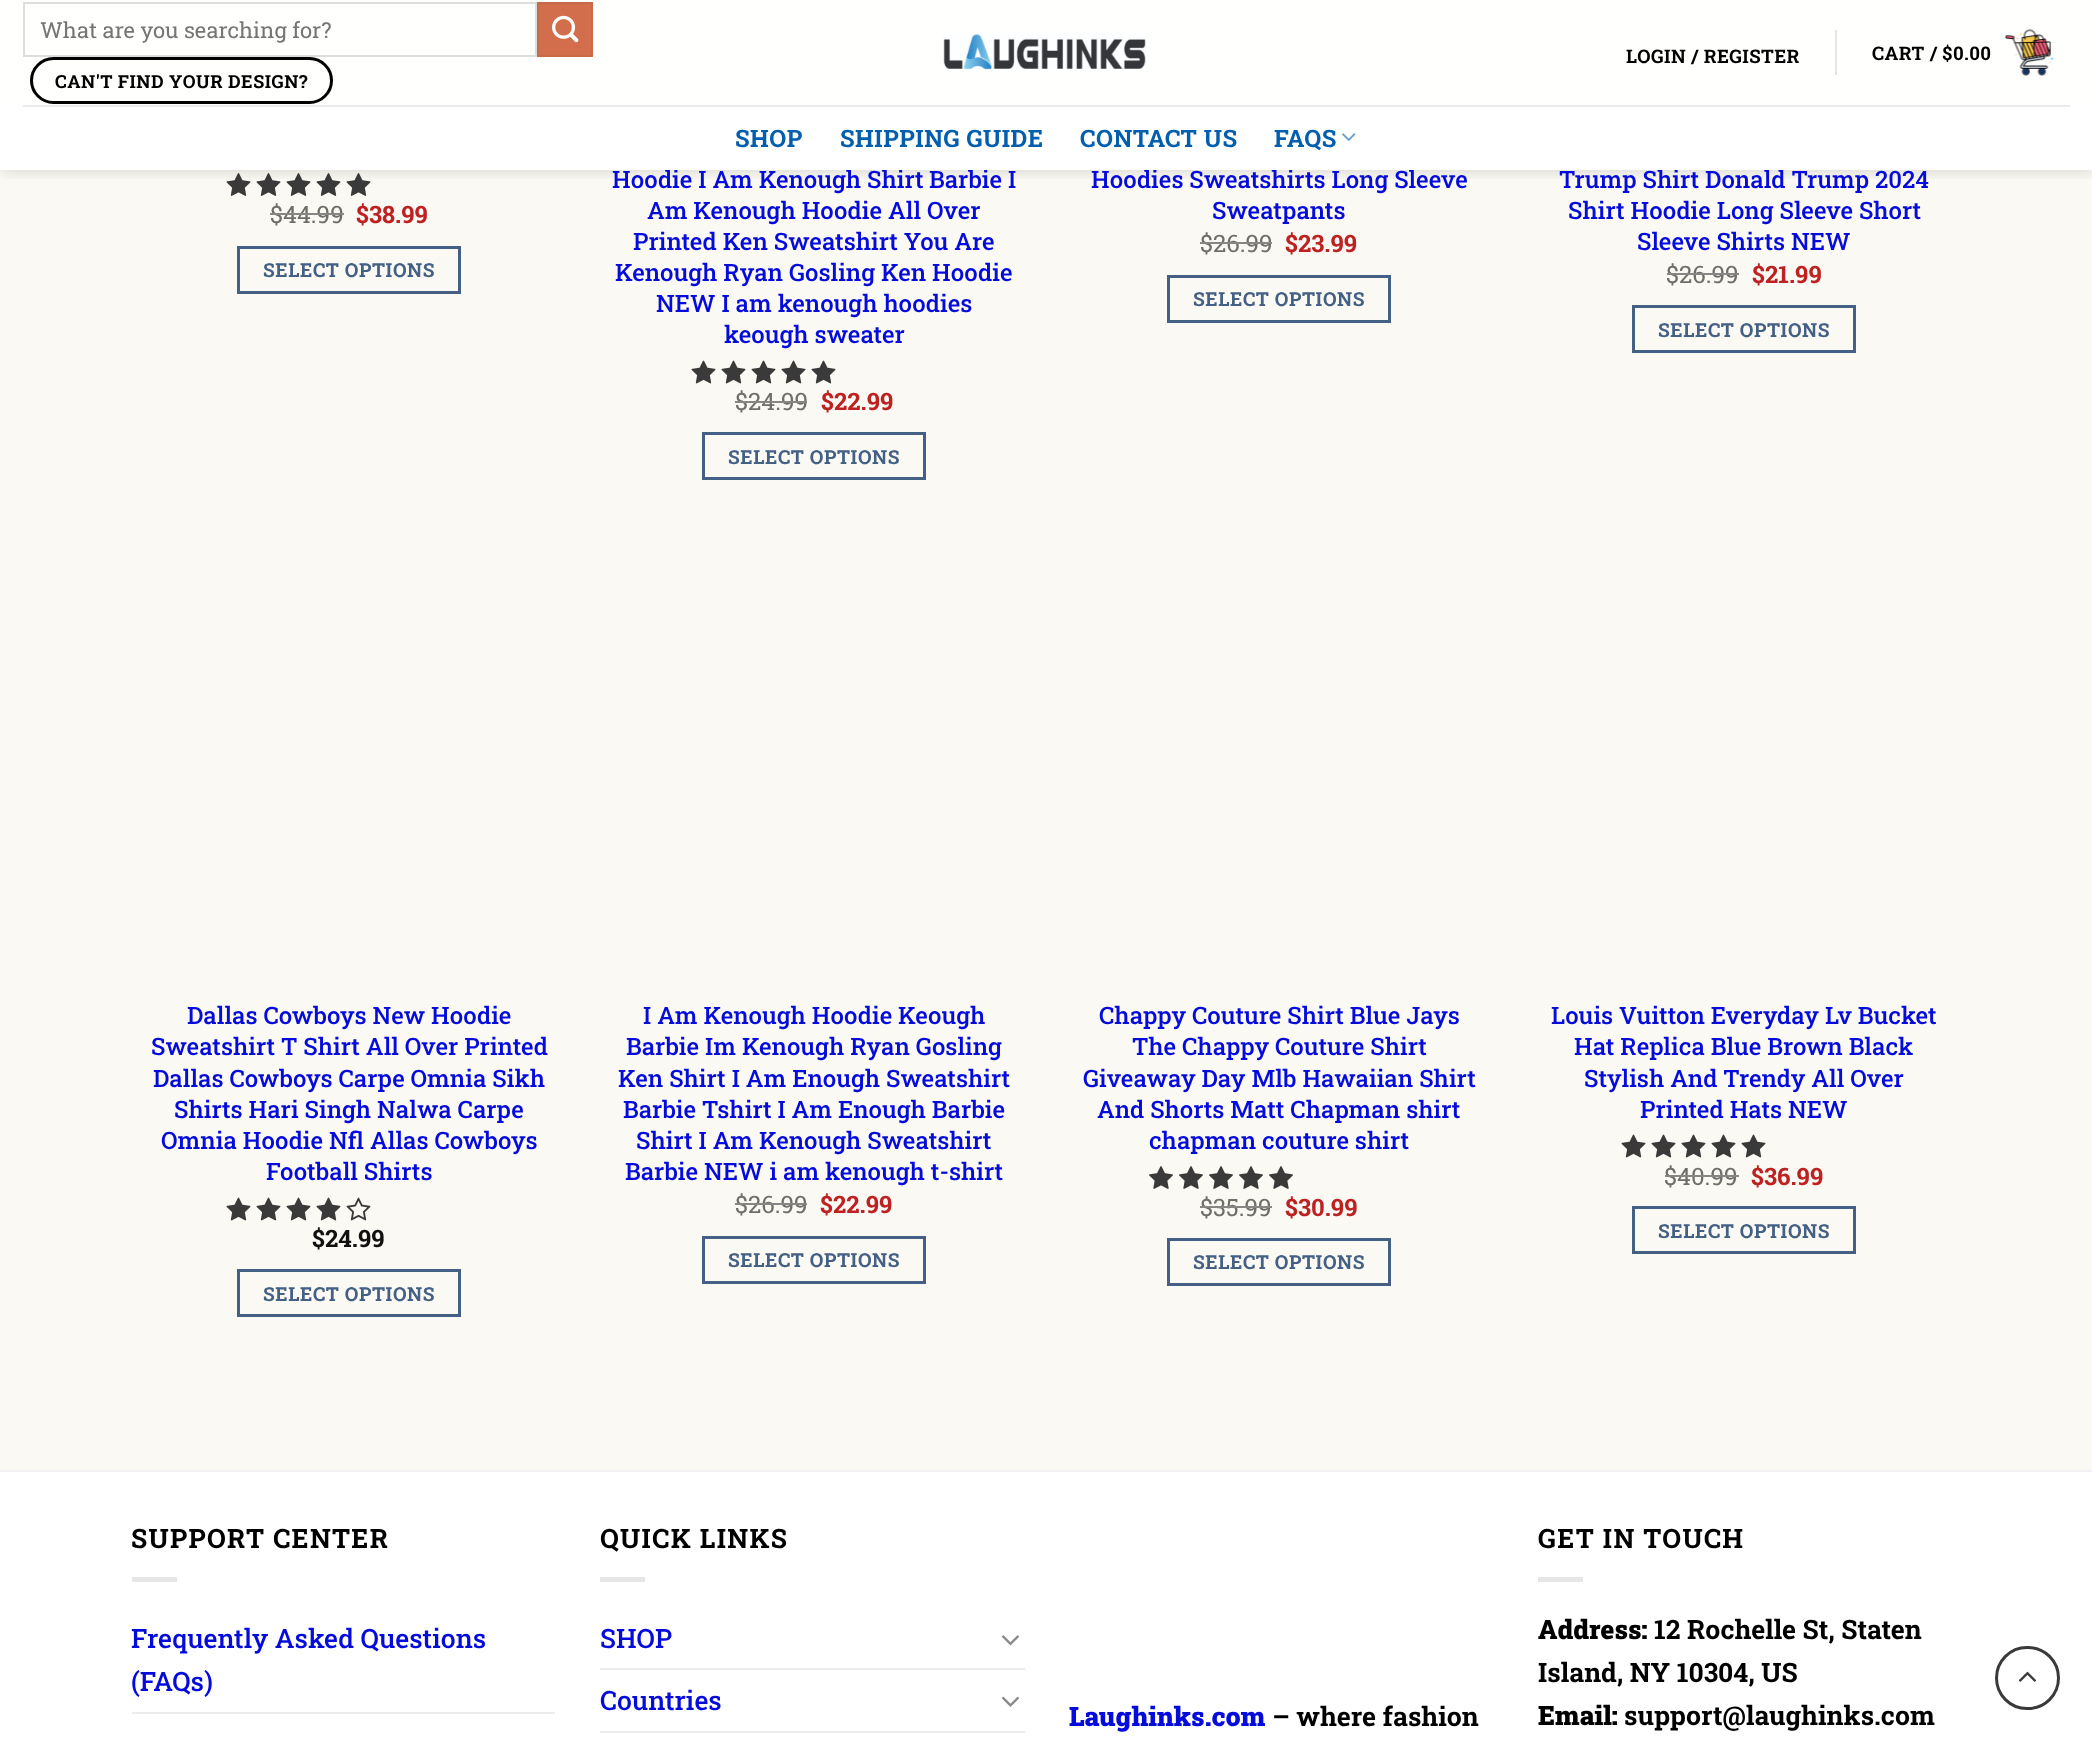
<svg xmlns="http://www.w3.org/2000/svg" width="2092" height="1740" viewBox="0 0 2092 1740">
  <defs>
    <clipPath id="clip1"><rect x="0" y="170" width="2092" height="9"/></clipPath>
  </defs>
  <rect width="100%" height="100%" fill="rgb(251,249,243)"/>
  <image x="226" y="173" width="25" height="23" href="pic5.png"/>
  <image x="256" y="173" width="25" height="23" href="pic5.png"/>
  <image x="286" y="173" width="25" height="23" href="pic5.png"/>
  <image x="316" y="173" width="25" height="23" href="pic5.png"/>
  <image x="346" y="173" width="25" height="23" href="pic5.png"/>
  <g clip-path="url(#clip1)">
    <rect x="2" y="2" width="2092" height="169" fill="rgba(0,0,0,0.15)" filter="blur(7.5px)"/>
  </g>
  <rect x="0" y="0" width="2092" height="105" fill="rgba(255,255,255,0.9)"/>
  <rect x="24" y="3" width="512" height="53" fill="none" stroke="rgb(221,221,221)" stroke-width="2"/>
  <text x="40" y="38" font-family="Roboto Slab" font-size="22" fill="rgb(117,117,117)">What are you searching for?</text>
  <rect x="538" y="3" width="54" height="53" fill="rgb(210,110,75)" stroke="rgb(200,105,71)" stroke-width="2"/>
  <image x="552" y="15" width="27" height="28" href="pic1.png"/>
  <rect x="31.5" y="58.5" width="300" height="44" rx="22" fill="none" stroke="rgb(0,0,0)" stroke-width="3"/>
  <text x="55" y="88" font-family="Roboto Slab" font-size="18.1" font-weight="bold" letter-spacing="0.5" fill="rgb(0,0,0)">CAN'T FIND YOUR DESIGN?</text>
  <image x="943" y="33" width="203" height="37" href="pic2.png"/>
  <text x="1626" y="63" font-family="Roboto Slab" font-size="18.75" font-weight="bold" letter-spacing="0.4" fill="rgb(0,0,0)">LOGIN / REGISTER</text>
  <rect x="1835" y="30" width="2" height="45" fill="rgb(229,229,228)"/>
  <text x="1872" y="60" font-family="Roboto Slab" font-size="18.75" font-weight="bold" letter-spacing="0.4" fill="rgb(0,0,0)">CART / $0.00</text>
  <image x="2005" y="29" width="49" height="47" href="pic3.png"/>
  <g font-family="Roboto Slab" font-size="24" font-weight="500" fill="rgb(4,11,219)">
    <text x="612" y="188">Hoodie I Am Kenough Shirt</text>
    <text x="929" y="188">Barbie I</text>
    <text x="1091" y="188">Hoodies Sweatshirts Long Sleeve</text>
    <text x="1559" y="188">Trump Shirt Donald Trump 2024</text>
  </g>
  <rect x="0" y="105" width="2092" height="65" fill="rgb(255,255,255)"/>
  <rect x="23" y="105" width="2047" height="2" fill="rgb(235,235,235)"/>
  <g font-family="Roboto Slab" font-size="24" font-weight="bold" letter-spacing="0.5" fill="rgb(3,94,174)">
    <text x="735" y="147">SHOP</text>
    <text x="840" y="147">SHIPPING GUIDE</text>
    <text x="1080" y="147">CONTACT US</text>
    <text x="1274" y="147">FAQS</text>
  </g>
  <image x="1342" y="133" width="14" height="8" href="pic4.png"/>
  <text x="270" y="223" font-family="Roboto Slab" font-size="24" fill="rgb(111,110,107)">$44.99</text>
  <rect x="270" y="213" width="74" height="2" fill="rgb(136,134,132)"/>
  <text x="356" y="223" font-family="Roboto Slab" font-size="24" font-weight="bold" fill="rgb(190,33,33)">$38.99</text>
  <rect x="238.5" y="247.5" width="221" height="45" fill="none" stroke="rgb(68,96,132)" stroke-width="3"/>
  <text x="263" y="277" font-family="Roboto Slab" font-size="19.25" font-weight="bold" letter-spacing="0.6" fill="rgb(68,96,132)">SELECT OPTIONS</text>
  <g font-family="Roboto Slab" font-size="24" font-weight="500" fill="rgb(4,11,219)">
    <text x="647" y="219">Am Kenough Hoodie All Over</text>
    <text x="633" y="250">Printed Ken Sweatshirt You Are</text>
    <text x="615" y="281">Kenough Ryan Gosling Ken Hoodie</text>
    <text x="656" y="312">NEW I am kenough hoodies</text>
    <text x="724" y="343">keough sweater</text>
  </g>
  <image x="691" y="360" width="25" height="24" href="pic6.png"/>
  <image x="721" y="360" width="25" height="24" href="pic6.png"/>
  <image x="751" y="360" width="25" height="24" href="pic6.png"/>
  <image x="781" y="360" width="25" height="24" href="pic6.png"/>
  <image x="811" y="360" width="25" height="24" href="pic6.png"/>
  <text x="735" y="410" font-family="Roboto Slab" font-size="24" fill="rgb(111,110,107)">$24.99</text>
  <rect x="735" y="401" width="72" height="2" fill="rgb(136,134,132)"/>
  <text x="821" y="410" font-family="Roboto Slab" font-size="24" font-weight="bold" fill="rgb(190,33,33)">$22.99</text>
  <rect x="703.5" y="433.5" width="221" height="45" fill="none" stroke="rgb(68,96,132)" stroke-width="3"/>
  <text x="728" y="464" font-family="Roboto Slab" font-size="19.25" font-weight="bold" letter-spacing="0.6" fill="rgb(68,96,132)">SELECT OPTIONS</text>
  <text x="1212" y="219" font-family="Roboto Slab" font-size="24" font-weight="500" fill="rgb(4,11,219)">Sweatpants</text>
  <text x="1200" y="252" font-family="Roboto Slab" font-size="24" fill="rgb(111,110,107)">$</text>
  <rect x="1200" y="242" width="14" height="2" fill="rgb(136,134,132)"/>
  <text x="1213" y="252" font-family="Roboto Slab" font-size="24" fill="rgb(111,110,107)">26.99</text>
  <rect x="1214" y="242" width="58" height="2" fill="rgb(136,134,132)"/>
  <text x="1285" y="252" font-family="Roboto Slab" font-size="24" font-weight="bold" fill="rgb(190,33,33)">$23.99</text>
  <rect x="1168.5" y="276.5" width="221" height="45" fill="none" stroke="rgb(68,96,132)" stroke-width="3"/>
  <text x="1193" y="306" font-family="Roboto Slab" font-size="19.25" font-weight="bold" letter-spacing="0.6" fill="rgb(68,96,132)">SELECT OPTIONS</text>
  <g font-family="Roboto Slab" font-size="24" font-weight="500" fill="rgb(4,11,219)">
    <text x="1568" y="219">Shirt Hoodie Long Sleeve Short</text>
    <text x="1637" y="250">Sleeve Shirts NEW</text>
  </g>
  <text x="1666" y="283" font-family="Roboto Slab" font-size="24" fill="rgb(111,110,107)">$26.99</text>
  <rect x="1667" y="273" width="72" height="2" fill="rgb(136,134,132)"/>
  <text x="1752" y="283" font-family="Roboto Slab" font-size="24" font-weight="bold" fill="rgb(190,33,33)">$21.99</text>
  <rect x="1633.5" y="306.5" width="221" height="45" fill="none" stroke="rgb(68,96,132)" stroke-width="3"/>
  <text x="1658" y="337" font-family="Roboto Slab" font-size="19.25" font-weight="bold" letter-spacing="0.6" fill="rgb(68,96,132)">SELECT OPTIONS</text>
  <g font-family="Roboto Slab" font-size="24" font-weight="500" fill="rgb(4,11,219)">
    <text x="187" y="1024">Dallas Cowboys New Hoodie</text>
    <text x="151" y="1055">Sweatshirt T Shirt All Over Printed</text>
    <text x="153" y="1087">Dallas Cowboys Carpe Omnia Sikh</text>
    <text x="174" y="1118">Shirts Hari Singh Nalwa Carpe</text>
    <text x="161" y="1149">Omnia Hoodie Nfl Allas Cowboys</text>
    <text x="266" y="1180">Football Shirts</text>
  </g>
  <image x="226" y="1197" width="25" height="24" href="pic6.png"/>
  <image x="256" y="1197" width="25" height="24" href="pic6.png"/>
  <image x="286" y="1197" width="25" height="24" href="pic6.png"/>
  <image x="316" y="1197" width="25" height="24" href="pic6.png"/>
  <image x="346" y="1197" width="25" height="24" href="pic7.png"/>
  <text x="312" y="1247" font-family="Roboto Slab" font-size="24" font-weight="bold" fill="rgb(17,17,17)">$24.99</text>
  <rect x="238.5" y="1270.5" width="221" height="45" fill="none" stroke="rgb(68,96,132)" stroke-width="3"/>
  <text x="263" y="1301" font-family="Roboto Slab" font-size="19.25" font-weight="bold" letter-spacing="0.6" fill="rgb(68,96,132)">SELECT OPTIONS</text>
  <g font-family="Roboto Slab" font-size="24" font-weight="500" fill="rgb(4,11,219)">
    <text x="643" y="1024">I Am Kenough Hoodie Keough</text>
    <text x="626" y="1055">Barbie Im Kenough Ryan Gosling</text>
    <text x="618" y="1087">Ken Shirt I Am Enough Sweatshirt</text>
    <text x="623" y="1118">Barbie Tshirt I Am Enough Barbie</text>
    <text x="636" y="1149">Shirt I Am Kenough Sweatshirt</text>
    <text x="625" y="1180">Barbie NEW i am kenough t-shirt</text>
  </g>
  <text x="735" y="1213" font-family="Roboto Slab" font-size="24" fill="rgb(111,110,107)">$</text>
  <rect x="735" y="1203" width="14" height="2" fill="rgb(136,134,132)"/>
  <text x="748" y="1213" font-family="Roboto Slab" font-size="24" fill="rgb(111,110,107)">26.99</text>
  <rect x="749" y="1203" width="58" height="2" fill="rgb(136,134,132)"/>
  <text x="820" y="1213" font-family="Roboto Slab" font-size="24" font-weight="bold" fill="rgb(190,33,33)">$22.99</text>
  <rect x="703.5" y="1237.5" width="221" height="45" fill="none" stroke="rgb(68,96,132)" stroke-width="3"/>
  <text x="728" y="1267" font-family="Roboto Slab" font-size="19.25" font-weight="bold" letter-spacing="0.6" fill="rgb(68,96,132)">SELECT OPTIONS</text>
  <g font-family="Roboto Slab" font-size="24" font-weight="500" fill="rgb(4,11,219)">
    <text x="1099" y="1024">Chappy Couture Shirt Blue Jays</text>
    <text x="1132" y="1055">The Chappy Couture Shirt</text>
    <text x="1083" y="1087">Giveaway Day Mlb Hawaiian Shirt</text>
    <text x="1097" y="1118">And Shorts Matt Chapman shirt</text>
    <text x="1149" y="1149">chapman couture shirt</text>
  </g>
  <image x="1149" y="1166" width="24" height="23" href="pic8.png"/>
  <image x="1179" y="1166" width="24" height="23" href="pic8.png"/>
  <image x="1209" y="1166" width="24" height="23" href="pic8.png"/>
  <image x="1239" y="1166" width="24" height="23" href="pic8.png"/>
  <image x="1269" y="1166" width="24" height="23" href="pic8.png"/>
  <text x="1200" y="1216" font-family="Roboto Slab" font-size="24" fill="rgb(111,110,107)">$35.99</text>
  <rect x="1200" y="1206" width="72" height="2" fill="rgb(136,134,132)"/>
  <text x="1285" y="1216" font-family="Roboto Slab" font-size="24" font-weight="bold" fill="rgb(190,33,33)">$30.99</text>
  <rect x="1168.5" y="1239.5" width="221" height="45" fill="none" stroke="rgb(68,96,132)" stroke-width="3"/>
  <text x="1193" y="1269" font-family="Roboto Slab" font-size="19.25" font-weight="bold" letter-spacing="0.6" fill="rgb(68,96,132)">SELECT OPTIONS</text>
  <g font-family="Roboto Slab" font-size="24" font-weight="500" fill="rgb(4,11,219)">
    <text x="1551" y="1024">Louis Vuitton Everyday Lv Bucket</text>
    <text x="1574" y="1055">Hat Replica Blue Brown Black</text>
    <text x="1584" y="1087">Stylish And Trendy All Over</text>
    <text x="1640" y="1118">Printed Hats NEW</text>
  </g>
  <image x="1621" y="1134" width="25" height="24" href="pic6.png"/>
  <image x="1651" y="1134" width="25" height="24" href="pic6.png"/>
  <image x="1681" y="1134" width="25" height="24" href="pic6.png"/>
  <image x="1711" y="1134" width="25" height="24" href="pic6.png"/>
  <image x="1741" y="1134" width="25" height="24" href="pic6.png"/>
  <text x="1664" y="1185" font-family="Roboto Slab" font-size="24" fill="rgb(111,110,107)">$40.99</text>
  <rect x="1665" y="1175" width="74" height="2" fill="rgb(136,134,132)"/>
  <text x="1751" y="1185" font-family="Roboto Slab" font-size="24" font-weight="bold" fill="rgb(190,33,33)">$36.99</text>
  <rect x="1633.5" y="1207.5" width="221" height="45" fill="none" stroke="rgb(68,96,132)" stroke-width="3"/>
  <text x="1658" y="1238" font-family="Roboto Slab" font-size="19.25" font-weight="bold" letter-spacing="0.6" fill="rgb(68,96,132)">SELECT OPTIONS</text>
  <rect x="0" y="1472" width="2092" height="268" fill="rgb(255,255,255)"/>
  <rect x="0" y="1470" width="2092" height="2" fill="rgb(242,242,242)"/>
  <text x="131" y="1548" font-family="Roboto Slab" font-size="26.6" font-weight="bold" letter-spacing="1.3" fill="rgb(0,0,0)">SUPPORT CENTER</text>
  <rect x="132" y="1577" width="45" height="5" fill="rgb(230,230,230)"/>
  <g font-family="Roboto Slab" font-size="26.6" font-weight="500" fill="rgb(4,11,219)">
    <text>
      <tspan x="131" y="1648">Frequently Asked Questions</tspan>
      <tspan x="131" y="1691">(FAQs)</tspan>
    </text>
  </g>
  <rect x="132" y="1712" width="423" height="2" fill="rgb(236,236,236)"/>
  <text x="600" y="1548" font-family="Roboto Slab" font-size="26.6" font-weight="bold" letter-spacing="1.3" fill="rgb(0,0,0)">QUICK LINKS</text>
  <rect x="600" y="1577" width="45" height="5" fill="rgb(230,230,230)"/>
  <text x="600" y="1648" font-family="Roboto Slab" font-size="26.6" font-weight="500" fill="rgb(4,11,219)">SHOP</text>
  <image x="1001" y="1635" width="18" height="11" href="pic9.png"/>
  <rect x="600" y="1668" width="425" height="2" fill="rgb(236,236,236)"/>
  <text x="600" y="1710" font-family="Roboto Slab" font-size="26.6" font-weight="500" fill="rgb(4,11,219)">Countries</text>
  <image x="1001" y="1696" width="18" height="11" href="pic10.png"/>
  <rect x="600" y="1731" width="425" height="2" fill="rgb(236,236,236)"/>
  <text x="1069" y="1726" font-family="Roboto Slab" font-size="26.6" font-weight="900" fill="rgb(4,11,219)">Laughinks.com</text>
  <text x="1272" y="1726" font-family="Roboto Slab" font-size="26.6" font-weight="bold" fill="rgb(0,0,0)">– where fashion</text>
  <text x="1538" y="1548" font-family="Roboto Slab" font-size="26.6" font-weight="bold" letter-spacing="1.3" fill="rgb(0,0,0)">GET IN TOUCH</text>
  <rect x="1538" y="1577" width="45" height="5" fill="rgb(230,230,230)"/>
  <text x="1538" y="1639" font-family="Roboto Slab" font-size="26.6" font-weight="900" fill="rgb(0,0,0)">Address:</text>
  <g font-family="Roboto Slab" font-size="26.6" font-weight="bold" fill="rgb(0,0,0)">
    <text x="1654" y="1639">12 Rochelle St, Staten</text>
    <text x="1538" y="1682">Island, NY 10304, US</text>
  </g>
  <text x="1538" y="1725" font-family="Roboto Slab" font-size="26.6" font-weight="900" fill="rgb(0,0,0)">Email:</text>
  <text x="1624" y="1725" font-family="Roboto Slab" font-size="26.6" font-weight="bold" fill="rgb(0,0,0)">support@laughinks.com</text>
  <rect x="1996.5" y="1647.5" width="62" height="61" rx="30.5" fill="none" stroke="rgb(59,58,58)" stroke-width="3"/>
  <image x="2018" y="1671" width="19" height="11" href="pic11.png"/>
</svg>
